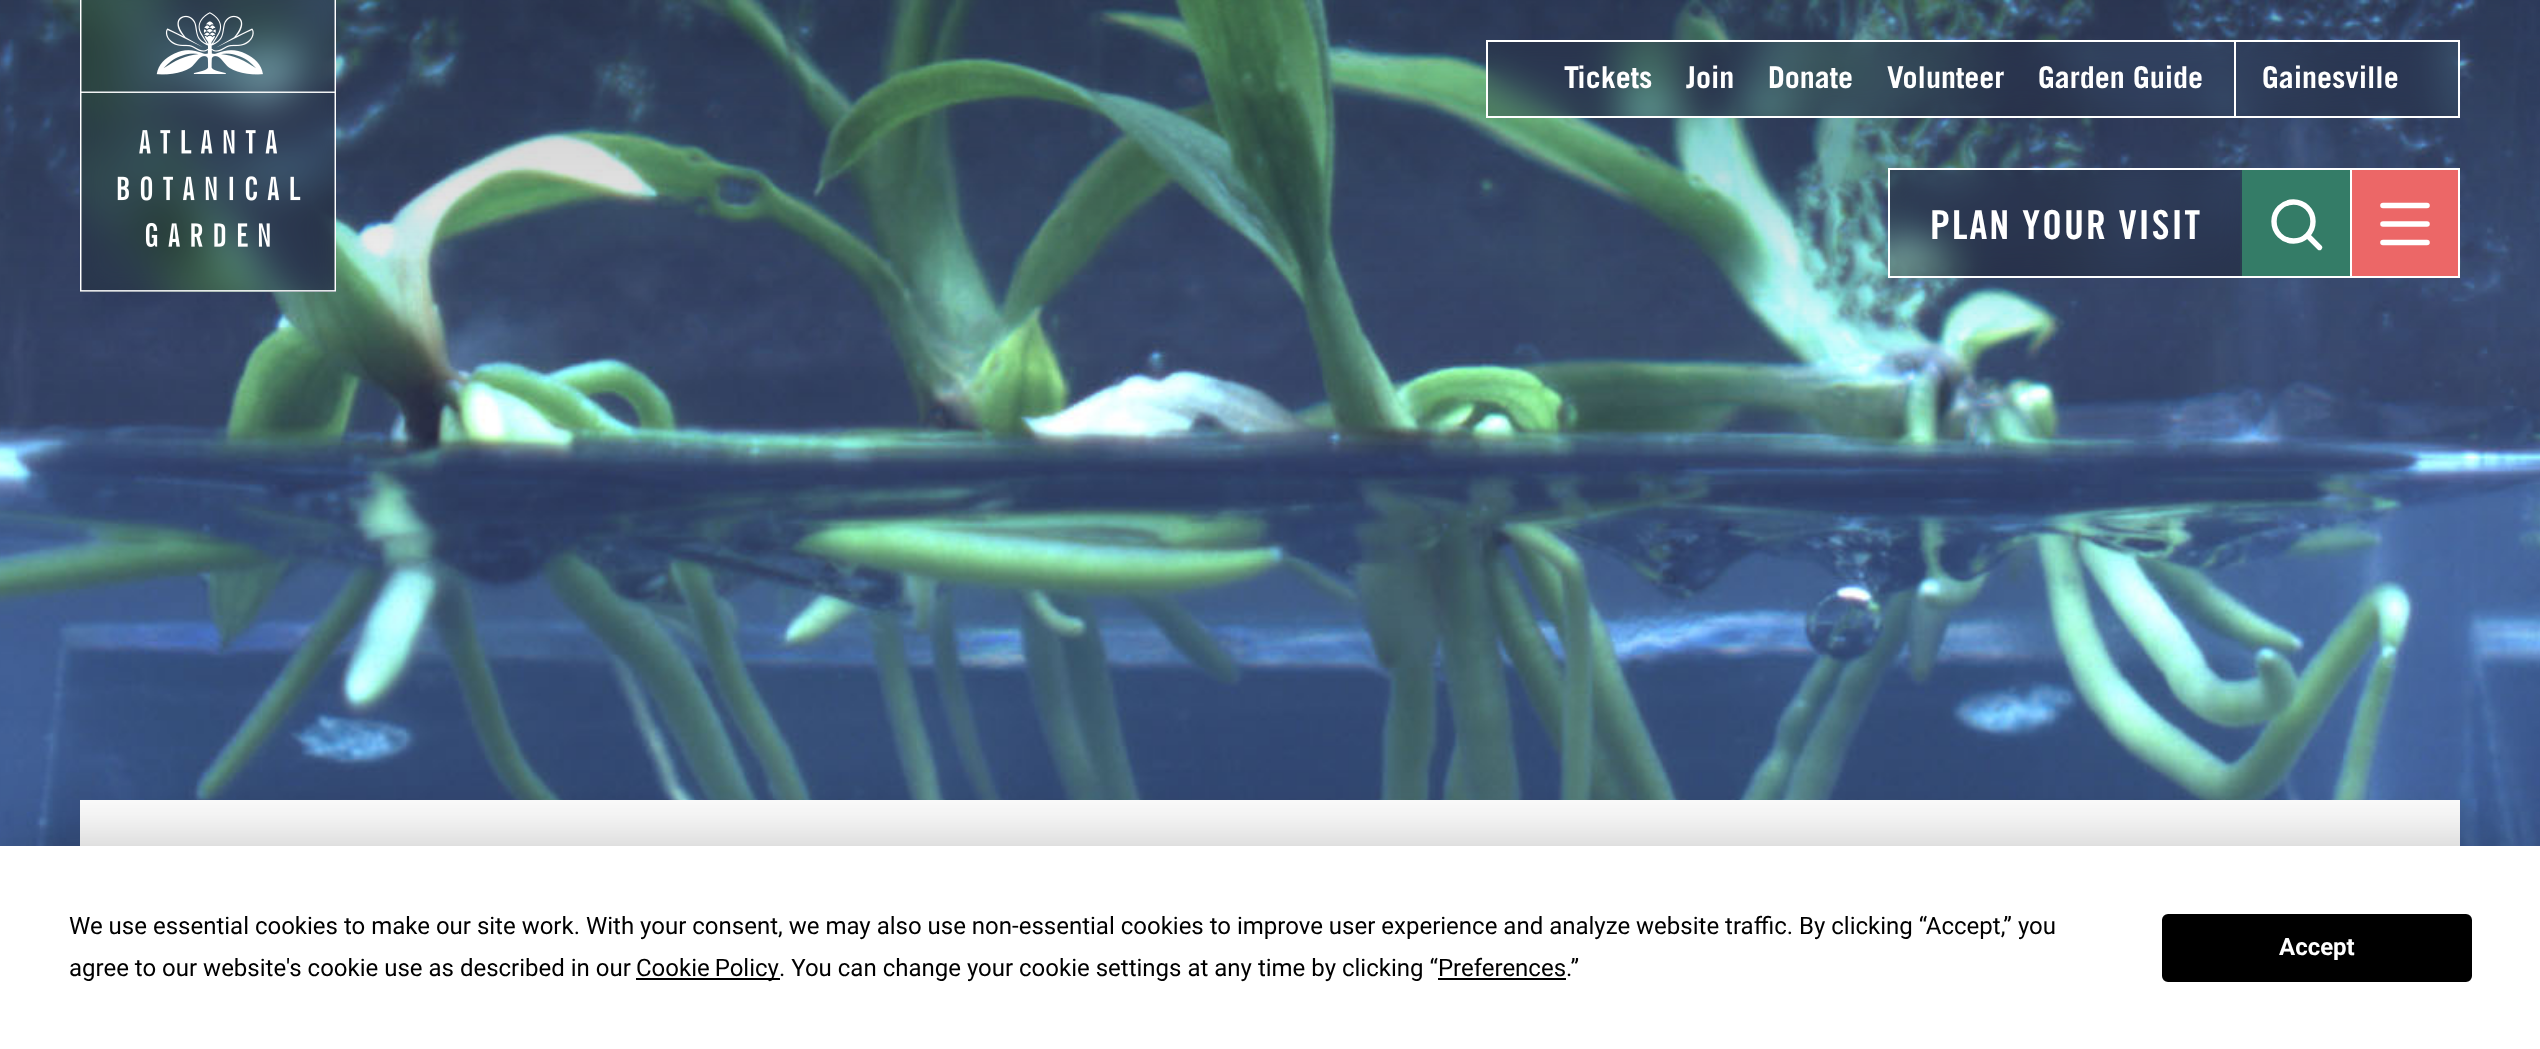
<svg xmlns="http://www.w3.org/2000/svg" width="2540" height="1049" viewBox="0 0 2540 1049">
  <rect width="100%" height="100%" fill="rgb(255,255,255)"/>
  <image x="0" y="0" width="2540" height="846" href="pic1.png"/>
  <image x="80" y="0" width="256" height="292" href="pic2.png"/>
  <rect x="80" y="0" width="256" height="292" fill="rgba(8,8,8,0.3)"/>
  <image x="80" y="0" width="256" height="292" href="pic3.png"/>
  <rect x="1487" y="41" width="972" height="76" fill="none" stroke="rgb(255,255,255)" stroke-width="2"/>
  <image x="1488" y="42" width="970" height="74" href="pic4.png"/>
  <rect x="1488" y="42" width="970" height="74" fill="rgba(8,8,8,0.3)"/>
  <rect x="2234" y="42" width="2" height="74" fill="rgb(255,255,255)"/>
  <g font-family="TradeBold" font-size="30" fill="rgb(255,255,255)">
    <text x="1564" y="88">Tickets</text>
    <text x="1686" y="88">Join</text>
    <text x="1768" y="88">Donate</text>
    <text x="1887" y="88">Volunteer</text>
    <text x="2038" y="88">Garden Guide</text>
    <text x="2262" y="88">Gainesville</text>
  </g>
  <rect x="1889" y="169" width="570" height="108" fill="none" stroke="rgb(255,255,255)" stroke-width="2"/>
  <rect x="2240" y="170" width="110" height="106" fill="rgb(52,124,103)"/>
  <image x="1890" y="170" width="352" height="106" href="pic5.png"/>
  <rect x="1890" y="170" width="352" height="106" fill="rgba(8,8,8,0.3)"/>
  <text x="1930" y="239" font-family="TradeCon" font-size="40" letter-spacing="2" fill="rgb(255,255,255)">PLAN YOUR VISIT</text>
  <circle cx="2293.5" cy="221.5" r="19.5" fill="none" stroke="rgb(255,255,255)" stroke-width="5.4"/>
  <path d="M2308.5 236.5L2319.5 247.5" fill="none" stroke="rgb(255,255,255)" stroke-width="5.4" stroke-linecap="round" stroke-linejoin="round"/>
  <rect x="2352" y="170" width="106" height="106" fill="rgb(236,103,103)"/>
  <rect x="2350" y="170" width="2" height="106" fill="rgb(255,255,255)"/>
  <path d="M2383 205.5H2427M2383 224H2427M2383 242.5H2427" fill="none" stroke="rgb(255,255,255)" stroke-width="5.6" stroke-linecap="round"/>
  <rect x="80" y="800" width="2380" height="46" fill="rgb(255,255,255)"/>
  <rect x="0" y="846" width="2540" height="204" fill="rgba(0,0,0,0.25)" filter="blur(35px)"/>
  <rect x="0" y="846" width="2540" height="203" fill="rgb(255,255,255)"/>
  <g font-family="Roboto" font-size="24" fill="rgb(0,0,0)">
    <text>
      <tspan x="69" y="934">We use essential cookies to make our site work. With your consent, we may also use non-essential cookies to improve user experience and analyze website traffic. By clicking “Accept,” you</tspan>
      <tspan x="69" y="976">agree to our website's cookie use as described in our</tspan>
    </text>
  </g>
  <rect x="636" y="978" width="144" height="2" fill="rgb(0,0,0)"/>
  <g font-family="Roboto" font-size="24" fill="rgb(0,0,0)">
    <text x="636" y="976" word-spacing="-1">Cookie Policy</text>
    <text x="779" y="976">. You can change your cookie settings at any time by clicking “Preferences.”</text>
  </g>
  <rect x="1438" y="978" width="128" height="2" fill="rgb(0,0,0)"/>
  <rect x="2163" y="915" width="308" height="66" rx="5" fill="rgb(0,0,0)" stroke="rgb(0,0,0)" stroke-width="2"/>
  <text x="2279" y="955" font-family="Roboto" font-size="24" font-weight="bold" fill="rgb(255,255,255)">Accept</text>
</svg>
